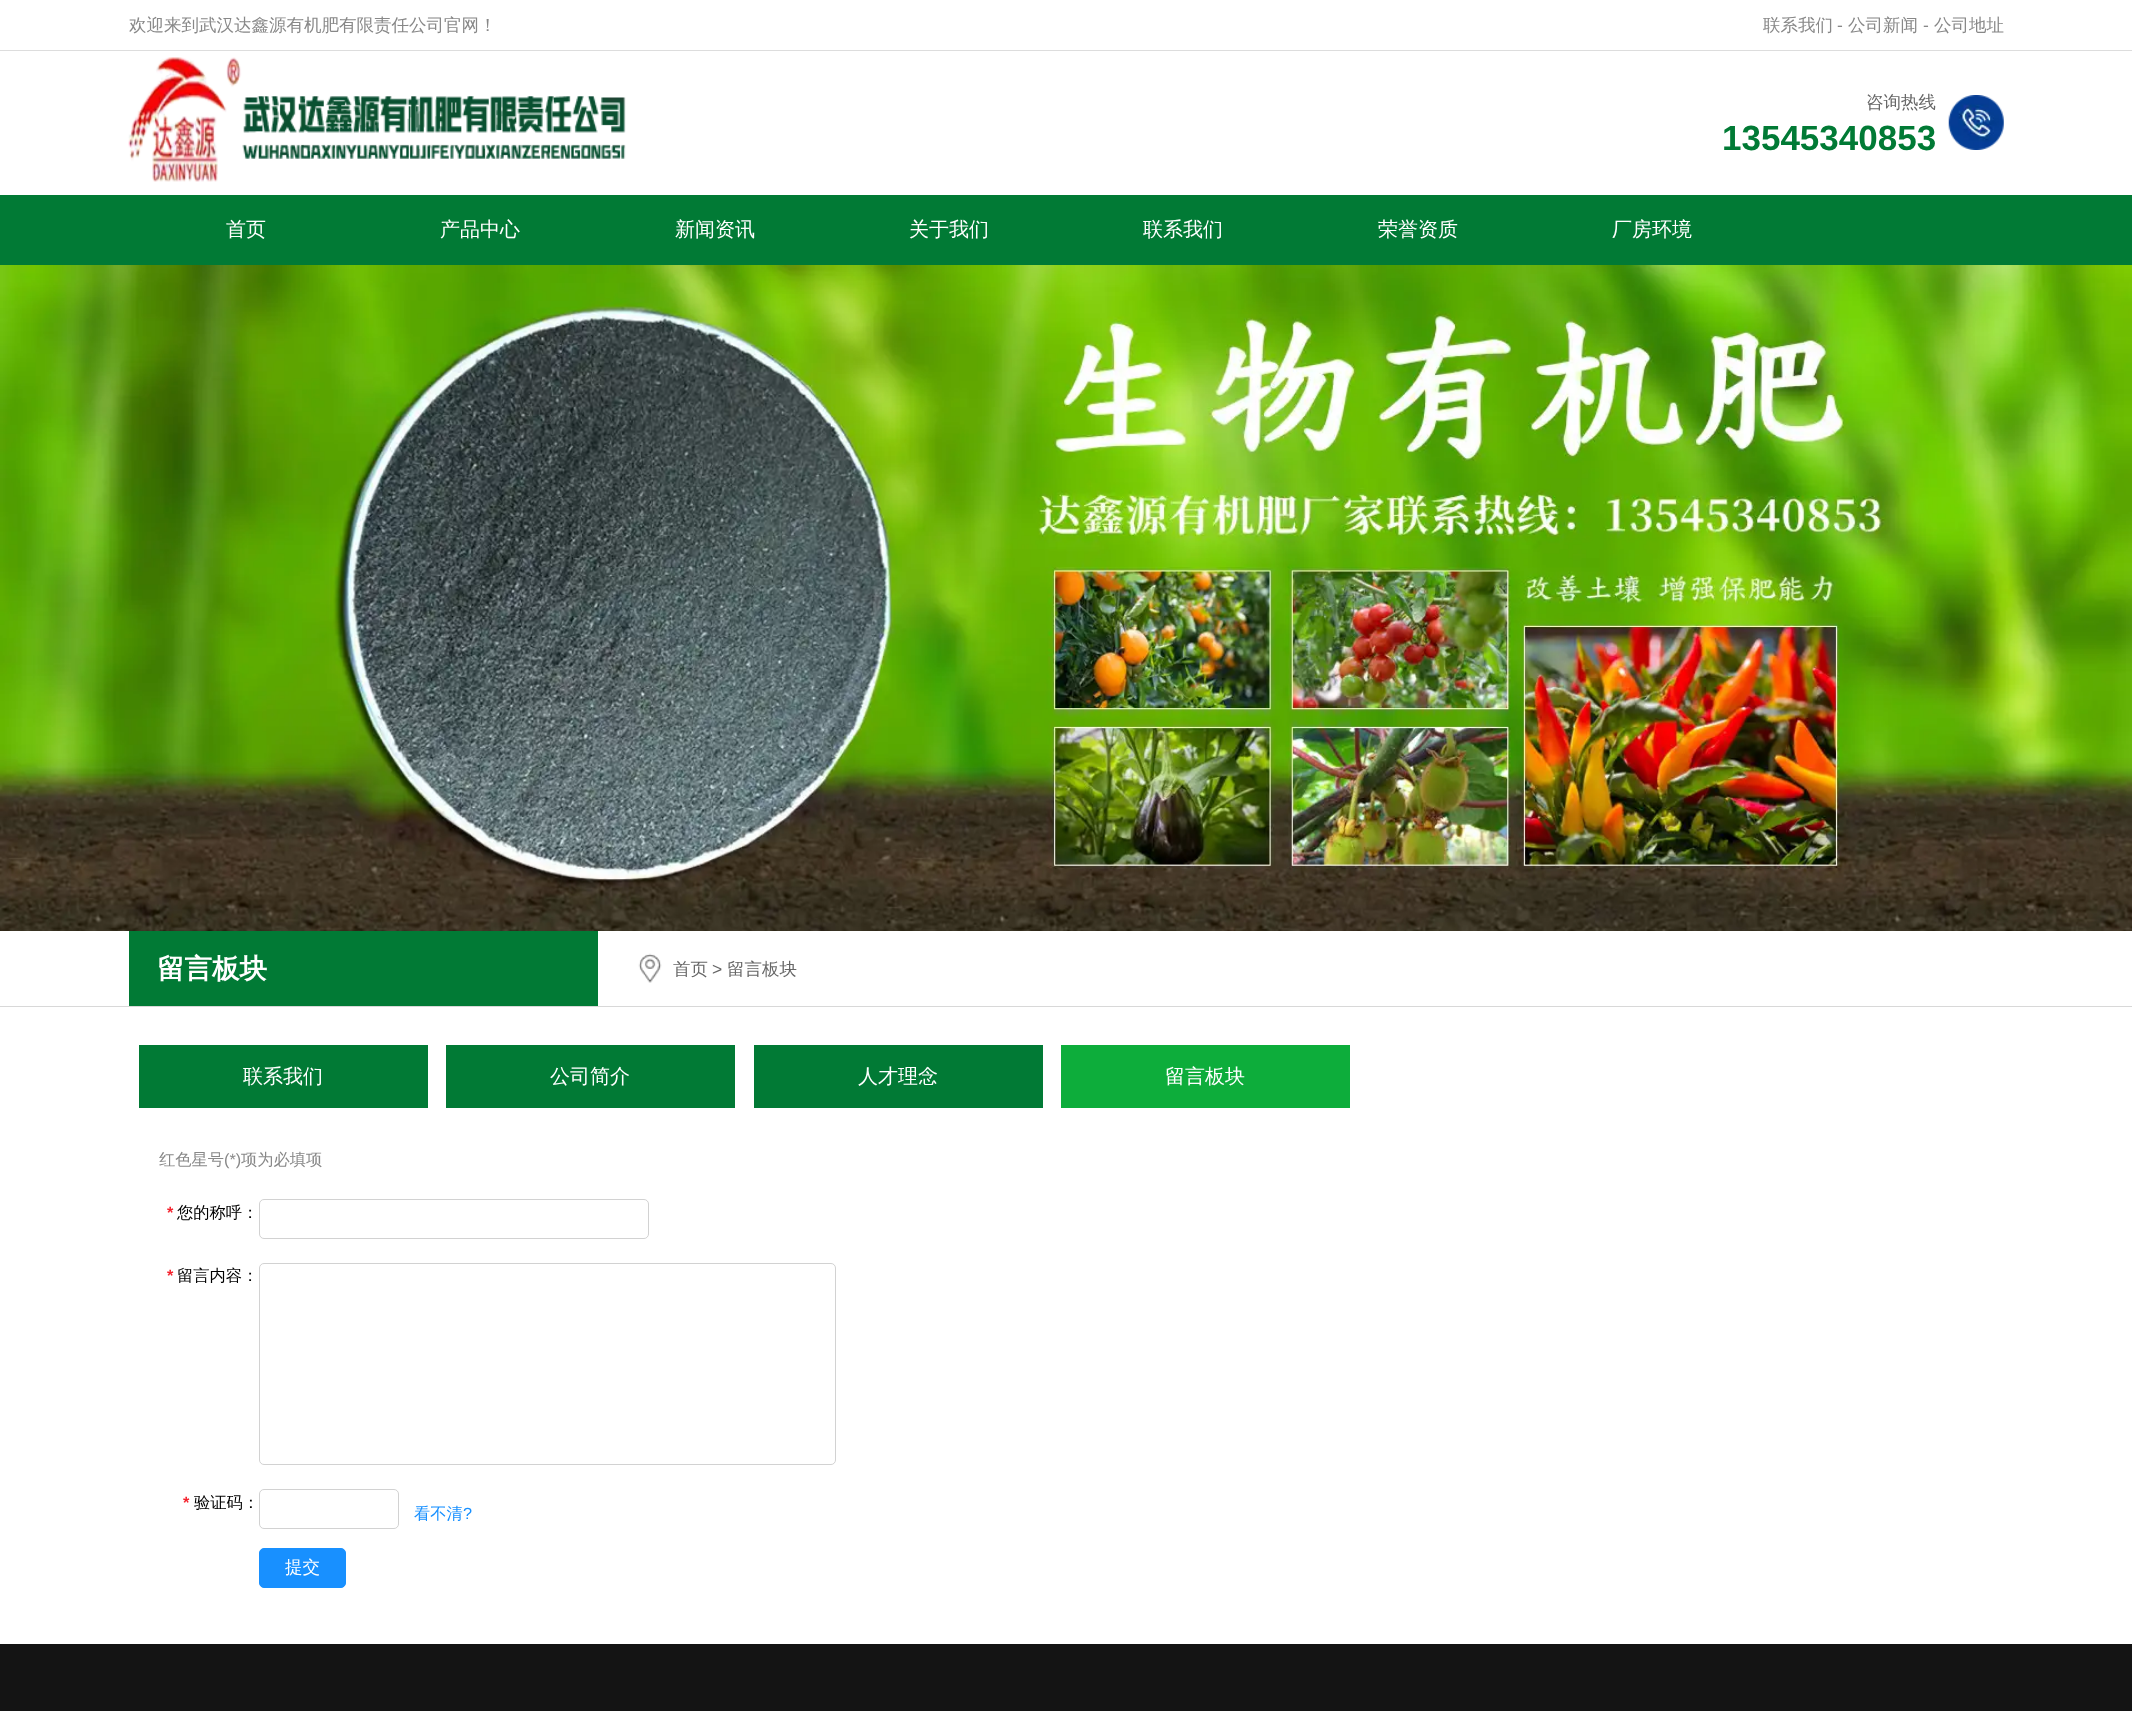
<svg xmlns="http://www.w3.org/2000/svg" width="2132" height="1711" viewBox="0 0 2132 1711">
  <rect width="100%" height="100%" fill="rgb(255,255,255)"/>
  <rect x="0" y="50" width="2132" height="1" fill="rgb(221,221,221)"/>
  <g font-family="WenQuanYi Zen Hei" font-size="17.5" font-weight="500" fill="rgb(136,136,136)">
    <text x="129" y="31">欢迎来到武汉达鑫源有机肥有限责任公司官网！</text>
    <text x="1763" y="31">联系我们</text>
  </g>
  <text x="1837" y="31" font-family="Liberation Sans" font-size="17.5" fill="rgb(136,136,136)">-</text>
  <text x="1848" y="31" font-family="WenQuanYi Zen Hei" font-size="17.5" font-weight="500" fill="rgb(136,136,136)">公司新闻</text>
  <text x="1923" y="31" font-family="Liberation Sans" font-size="17.5" fill="rgb(136,136,136)">-</text>
  <text x="1934" y="31" font-family="WenQuanYi Zen Hei" font-size="17.5" font-weight="500" fill="rgb(136,136,136)">公司地址</text>
  <image x="128" y="57" width="498" height="125" href="pic1.png"/>
  <text x="1866" y="108" font-family="WenQuanYi Zen Hei" font-size="17.5" font-weight="500" fill="rgb(102,102,102)">咨询热线</text>
  <text x="1722" y="150" font-family="Liberation Sans" font-size="35" font-weight="bold" fill="rgb(1,122,53)">13545340853</text>
  <image x="1948" y="95" width="56" height="55" href="pic2.png"/>
  <rect x="0" y="195" width="2132" height="70" fill="rgb(1,122,53)"/>
  <g font-family="WenQuanYi Zen Hei" font-size="20" font-weight="500" fill="rgb(255,255,255)">
    <text x="226" y="236">首页</text>
    <text x="440" y="236">产品中心</text>
    <text x="675" y="236">新闻资讯</text>
    <text x="909" y="236">关于我们</text>
    <text x="1143" y="236">联系我们</text>
    <text x="1378" y="236">荣誉资质</text>
    <text x="1612" y="236">厂房环境</text>
  </g>
  <image x="0" y="265" width="2132" height="666" href="pic3.png"/>
  <rect x="0" y="1006" width="2132" height="1" fill="rgb(216,216,216)"/>
  <rect x="129" y="931" width="469" height="75" fill="rgb(1,122,53)"/>
  <text x="157" y="978" font-family="WenQuanYi Zen Hei" font-size="27.5" font-weight="bold" fill="rgb(255,255,255)">留言板块</text>
  <image x="638" y="953" width="24" height="30" href="pic4.png"/>
  <text x="673" y="975" font-family="WenQuanYi Zen Hei" font-size="17.5" font-weight="500" fill="rgb(102,102,102)">首页</text>
  <text x="712" y="975" font-family="Liberation Sans" font-size="17.5" fill="rgb(102,102,102)">&gt;</text>
  <text x="727" y="975" font-family="WenQuanYi Zen Hei" font-size="17.5" font-weight="500" fill="rgb(102,102,102)">留言板块</text>
  <rect x="139" y="1045" width="289" height="63" fill="rgb(1,122,53)"/>
  <text x="243" y="1083" font-family="WenQuanYi Zen Hei" font-size="20" font-weight="500" fill="rgb(255,255,255)">联系我们</text>
  <rect x="446" y="1045" width="289" height="63" fill="rgb(1,122,53)"/>
  <text x="550" y="1083" font-family="WenQuanYi Zen Hei" font-size="20" font-weight="500" fill="rgb(255,255,255)">公司简介</text>
  <rect x="754" y="1045" width="289" height="63" fill="rgb(1,122,53)"/>
  <text x="858" y="1083" font-family="WenQuanYi Zen Hei" font-size="20" font-weight="500" fill="rgb(255,255,255)">人才理念</text>
  <rect x="1061" y="1045" width="289" height="63" fill="rgb(13,173,59)"/>
  <text x="1165" y="1083" font-family="WenQuanYi Zen Hei" font-size="20" font-weight="500" fill="rgb(255,255,255)">留言板块</text>
  <text x="159" y="1165" font-family="WenQuanYi Zen Hei" font-size="16.25" font-weight="500" fill="rgb(136,136,136)">红色星号</text>
  <text x="224" y="1165" font-family="Liberation Sans" font-size="16.25" fill="rgb(136,136,136)">(*)</text>
  <text x="241" y="1165" font-family="WenQuanYi Zen Hei" font-size="16.25" font-weight="500" fill="rgb(136,136,136)">项为必填项</text>
  <text x="167" y="1218" font-family="Liberation Sans" font-size="16.25" font-weight="bold" fill="rgb(245,34,45)">*</text>
  <text x="177" y="1218" font-family="WenQuanYi Zen Hei" font-size="16.25" font-weight="500" fill="rgb(0,0,0)">您的称呼：</text>
  <rect x="259.5" y="1199.5" width="389" height="39" rx="4.5" fill="none" stroke="rgb(210,210,210)"/>
  <text x="167" y="1281" font-family="Liberation Sans" font-size="16.25" font-weight="bold" fill="rgb(245,34,45)">*</text>
  <text x="177" y="1281" font-family="WenQuanYi Zen Hei" font-size="16.25" font-weight="500" fill="rgb(0,0,0)">留言内容：</text>
  <rect x="259.5" y="1263.5" width="576" height="201" rx="4.5" fill="none" stroke="rgb(210,210,210)"/>
  <text x="183" y="1508" font-family="Liberation Sans" font-size="16.25" font-weight="bold" fill="rgb(245,34,45)">*</text>
  <text x="194" y="1508" font-family="WenQuanYi Zen Hei" font-size="16.25" font-weight="500" fill="rgb(0,0,0)">验证码：</text>
  <rect x="259.5" y="1489.5" width="139" height="39" rx="4.5" fill="none" stroke="rgb(210,210,210)"/>
  <text x="414" y="1519" font-family="WenQuanYi Zen Hei" font-size="16.25" font-weight="500" fill="rgb(24,144,255)">看不清</text>
  <text x="463" y="1519" font-family="Liberation Sans" font-size="16.25" fill="rgb(24,144,255)">?</text>
  <rect x="259.5" y="1548.5" width="86" height="39" rx="4.5" fill="rgb(24,144,255)" stroke="rgb(24,144,255)"/>
  <text x="285" y="1573" font-family="WenQuanYi Zen Hei" font-size="17.5" font-weight="500" fill="rgb(255,255,255)">提交</text>
  <rect x="0" y="1644" width="2132" height="67" fill="rgb(20,20,20)"/>
</svg>
